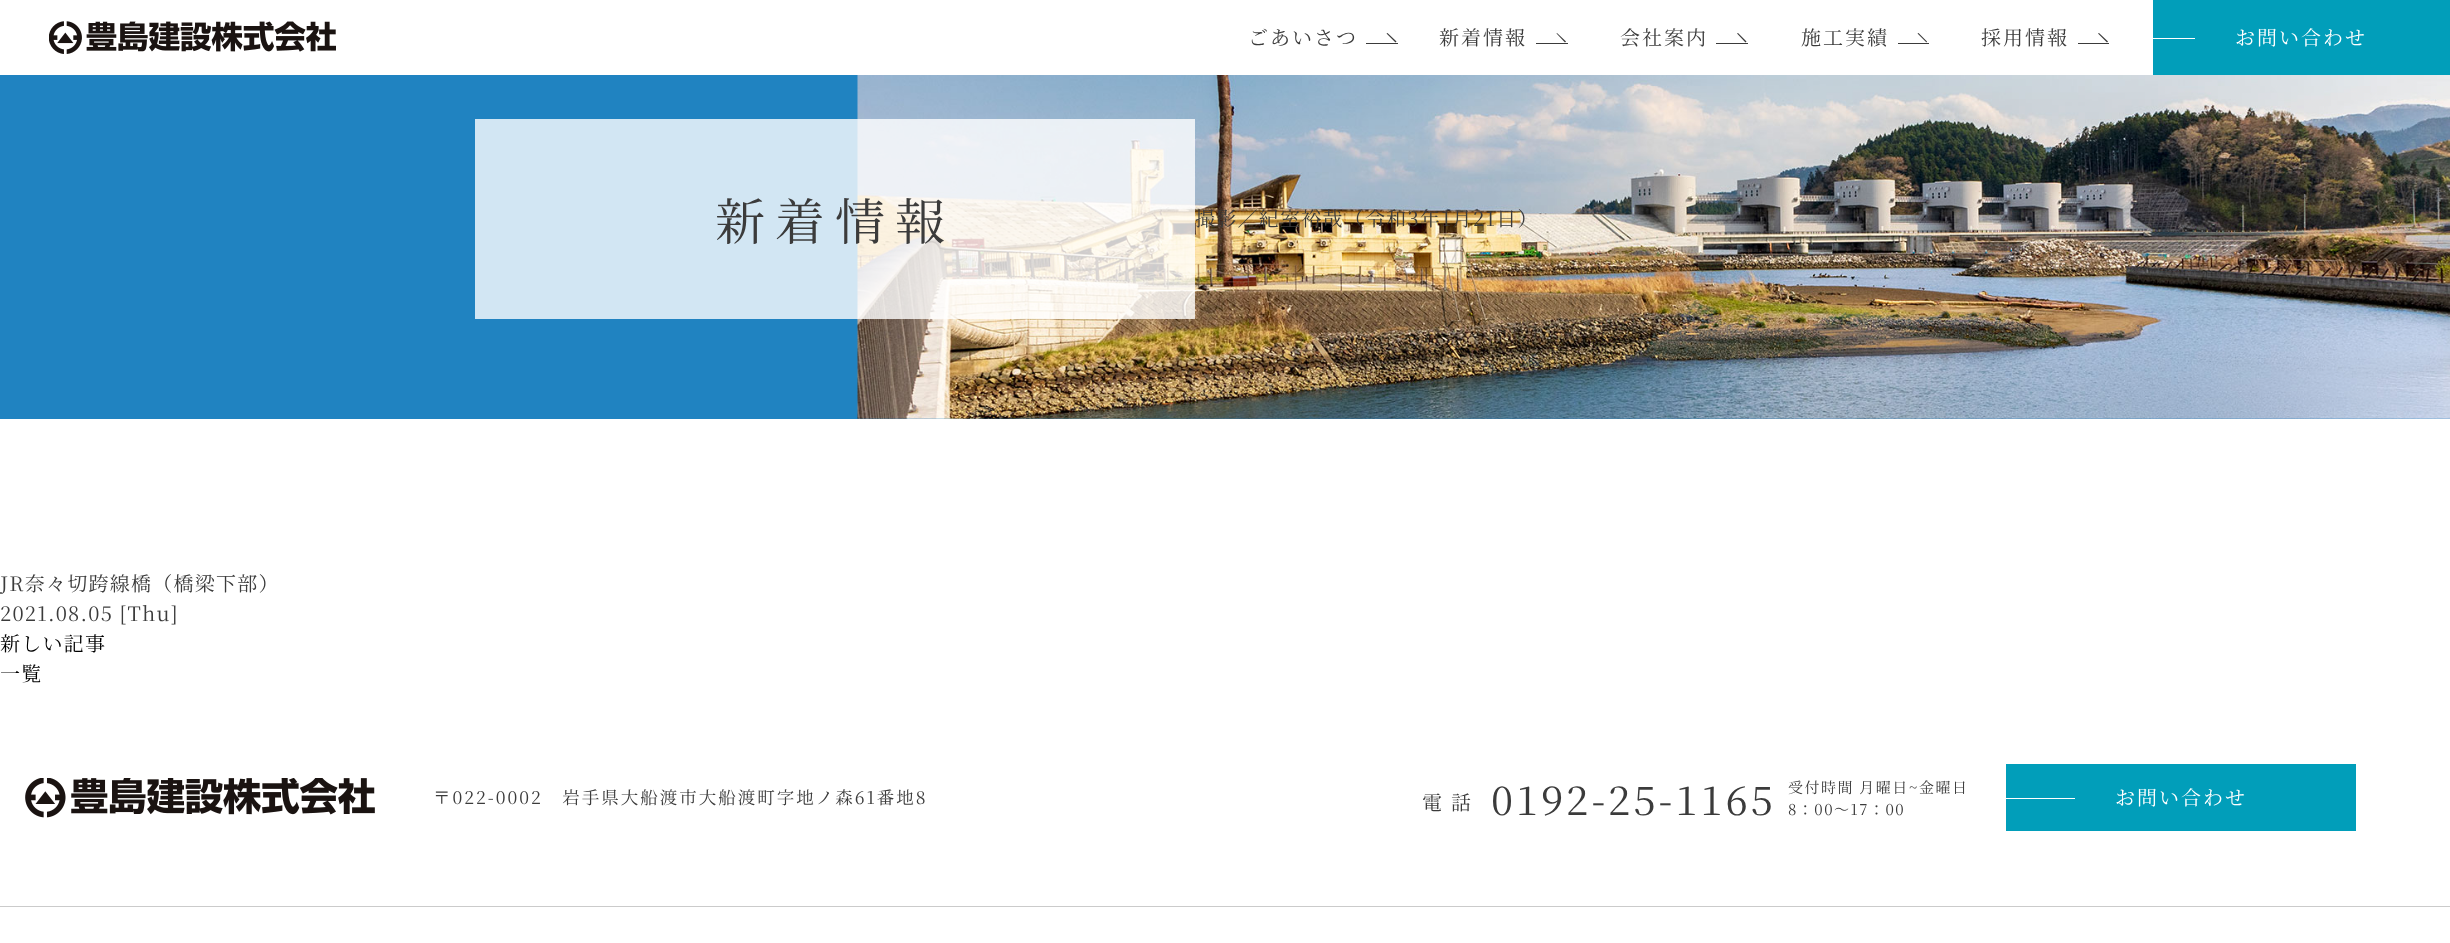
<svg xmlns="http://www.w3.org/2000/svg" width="2450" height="943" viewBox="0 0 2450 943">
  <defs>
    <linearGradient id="g1" gradientUnits="userSpaceOnUse" x1="2450" y1="38" x2="1855" y2="37"><stop offset="0.5" stop-color="rgb(1,158,186)"/><stop offset="0.51" stop-color="rgb(32,131,193)"/><stop offset="1" stop-color="rgb(32,131,193)"/></linearGradient>
    <linearGradient id="g2" gradientUnits="userSpaceOnUse" x1="2356" y1="798" x2="1656" y2="798"><stop offset="0.5" stop-color="rgb(1,158,186)"/><stop offset="0.51" stop-color="rgb(32,131,193)"/><stop offset="1" stop-color="rgb(32,131,193)"/></linearGradient>
  </defs>
  <rect width="100%" height="100%" fill="rgb(255,255,255)"/>
  <image x="49" y="21" width="287" height="33" href="pic1.png"/>
  <text x="1248" y="45" font-family="Noto Serif JP" font-size="20" letter-spacing="2" fill="rgb(59,59,59)">ごあいさつ</text>
  <path d="M1387.5 33L1396.5 41.5L1395.5 42.5L1386.5 33.5Z" fill="rgb(59,59,59)"/>
  <rect x="1366" y="43" width="32" height="1" fill="rgb(59,59,59)"/>
  <text x="1439" y="45" font-family="Noto Serif JP" font-size="20" letter-spacing="2" fill="rgb(59,59,59)">新着情報</text>
  <path d="M1557 33L1566 41.5L1565 42.5L1556.5 33.5Z" fill="rgb(59,59,59)"/>
  <rect x="1536" y="43" width="32" height="1" fill="rgb(59,59,59)"/>
  <text x="1620" y="45" font-family="Noto Serif JP" font-size="20" letter-spacing="2" fill="rgb(59,59,59)">会社案内</text>
  <path d="M1738 33L1746.5 41.5L1745.5 42.5L1737 33.5Z" fill="rgb(59,59,59)"/>
  <rect x="1716" y="43" width="32" height="1" fill="rgb(59,59,59)"/>
  <text x="1801" y="45" font-family="Noto Serif JP" font-size="20" letter-spacing="2" fill="rgb(59,59,59)">施工実績</text>
  <path d="M1918.5 33L1927 41.5L1926.5 42.5L1917.5 33.5Z" fill="rgb(59,59,59)"/>
  <rect x="1898" y="43" width="31" height="1" fill="rgb(59,59,59)"/>
  <text x="1981" y="45" font-family="Noto Serif JP" font-size="20" letter-spacing="2" fill="rgb(59,59,59)">採用情報</text>
  <path d="M2099 33L2108 41.5L2107 42.5L2098 33.5Z" fill="rgb(59,59,59)"/>
  <rect x="2078" y="43" width="31" height="1" fill="rgb(59,59,59)"/>
  <rect x="2153" y="0" width="297" height="75" fill="url(#g1)"/>
  <rect x="2153" y="38" width="42" height="1" fill="rgb(255,255,255)"/>
  <text x="2235" y="45" font-family="Noto Serif JP" font-size="20" letter-spacing="2" fill="rgb(255,255,255)">お問い合わせ</text>
  <rect x="0" y="75" width="2450" height="344" fill="rgb(32,131,193)"/>
  <image x="857" y="75" width="1593" height="344" href="pic2.png"/>
  <rect x="475" y="119" width="720" height="200" fill="rgba(255,255,255,0.8)"/>
  <text x="715" y="240" font-family="Noto Serif JP" font-size="50" letter-spacing="10" fill="rgb(59,59,59)">新着情報</text>
  <g font-family="Noto Serif JP" font-size="20" letter-spacing="1.25" fill="rgb(59,59,59)">
    <text x="1195" y="226">撮影／紀室裕哉（令和3年1月21日）</text>
    <text>
      <tspan x="0" y="591">JR奈々切跨線橋（橋梁下部）</tspan>
      <tspan x="0" y="621">2021.08.05 [Thu]</tspan>
    </text>
  </g>
  <g font-family="Noto Serif JP" font-size="20" letter-spacing="1.25" fill="rgb(0,0,0)">
    <text>
      <tspan x="0" y="651">新しい記事</tspan>
      <tspan x="0" y="681">一覧</tspan>
    </text>
  </g>
  <rect x="0" y="906" width="2450" height="1" fill="rgb(203,203,203)"/>
  <image x="25" y="778" width="350" height="40" href="pic3.png"/>
  <text x="433" y="804" font-family="Noto Serif JP" font-size="17.5" letter-spacing="2" fill="rgb(59,59,59)">〒022-0002　岩手県大船渡市大船渡町字地ノ森61番地8</text>
  <text x="1422" y="810" font-family="Noto Serif JP" font-size="20" letter-spacing="2" fill="rgb(59,59,59)">電 話</text>
  <text x="1491" y="815" font-family="Noto Serif JP" font-size="40" letter-spacing="3.1" fill="rgb(59,59,59)">0192-25-1165</text>
  <g font-family="Noto Serif JP" font-size="15" letter-spacing="1.5" fill="rgb(59,59,59)">
    <text>
      <tspan x="1788" y="793">受付時間 月曜日~金曜日</tspan>
      <tspan x="1788" y="815">8：00〜17：00</tspan>
    </text>
  </g>
  <rect x="2006" y="764" width="350" height="67" fill="url(#g2)"/>
  <rect x="2006" y="798" width="69" height="1" fill="rgb(255,255,255)"/>
  <text x="2115" y="805" font-family="Noto Serif JP" font-size="20" letter-spacing="2" fill="rgb(255,255,255)">お問い合わせ</text>
</svg>
